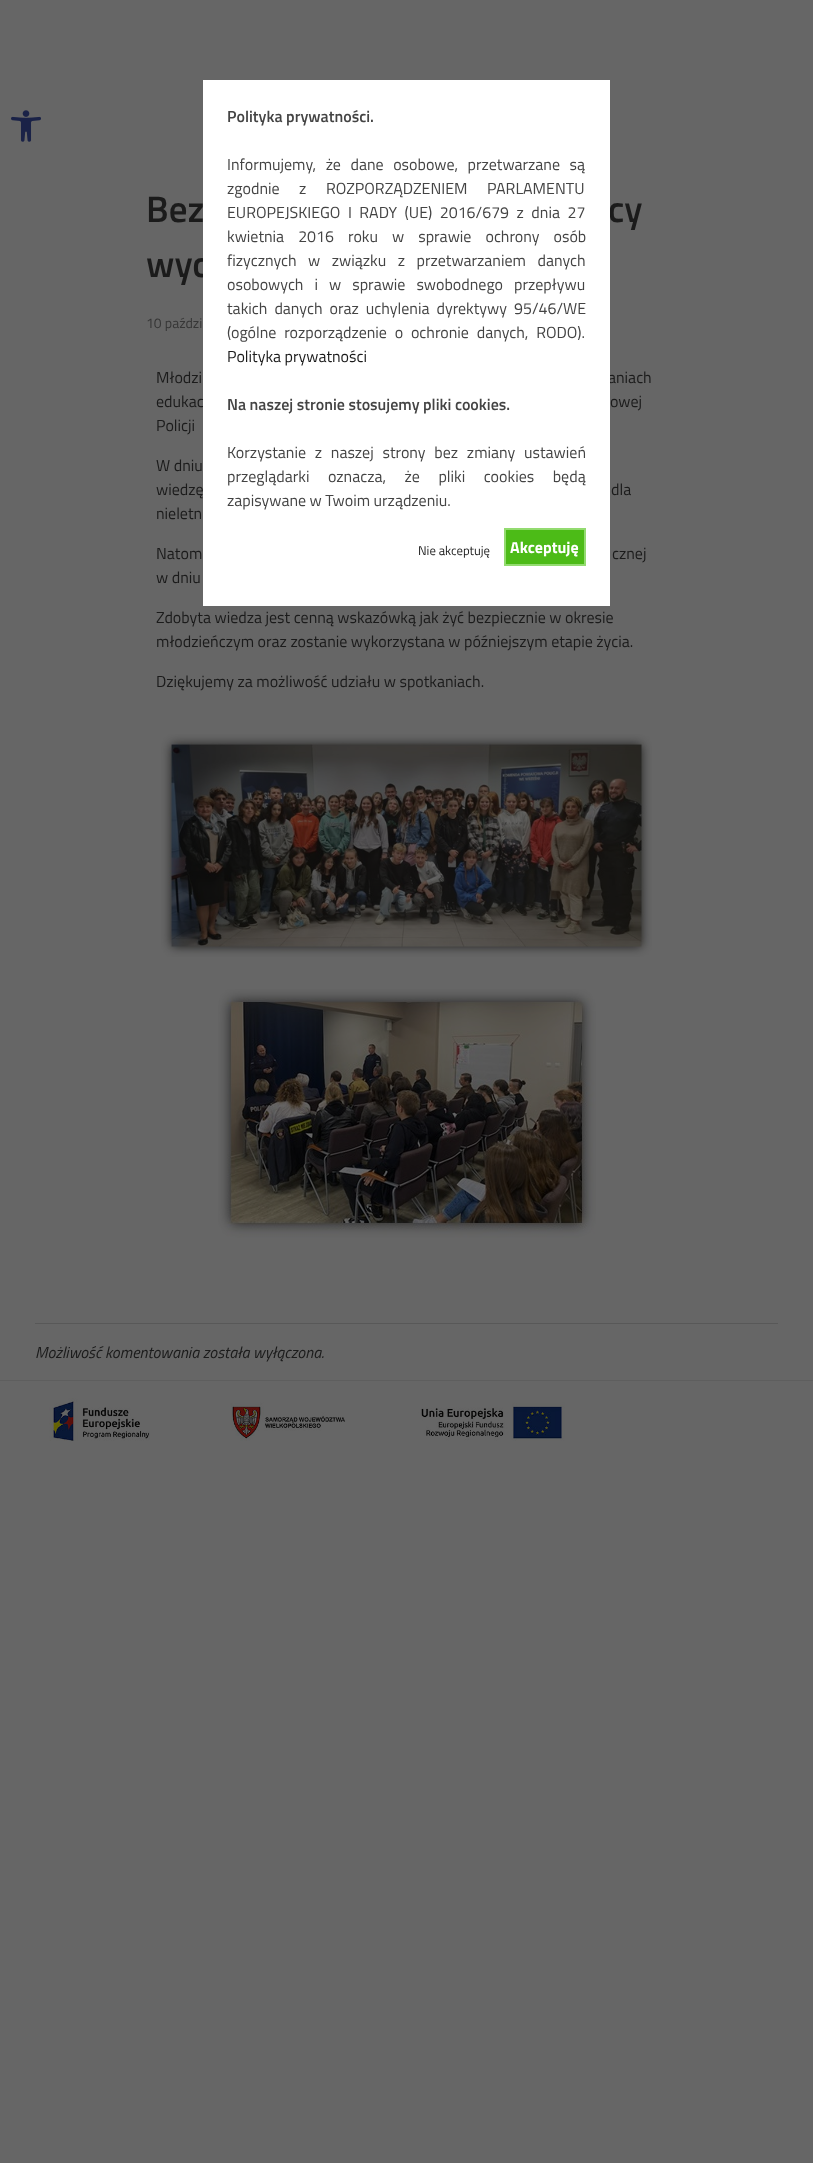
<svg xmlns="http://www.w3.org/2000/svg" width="813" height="2163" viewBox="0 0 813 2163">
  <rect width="100%" height="100%" fill="rgb(102,102,102)"/>
  <image x="11" y="110" width="30" height="32" href="pic1.png"/>
  <g font-family="Titillium Web" font-size="37" font-weight="600" fill="rgb(27,27,27)">
    <text x="608" y="222">cy</text>
    <text x="146" y="277">wyc</text>
  </g>
  <g font-family="Titillium Web" font-size="16" fill="rgb(27,27,27)">
    <text x="608" y="383">aniach</text>
    <text x="156" y="407">edukac</text>
    <text x="156" y="495">wiedzę</text>
  </g>
  <rect x="203" y="80" width="407" height="526" fill="rgb(255,255,255)"/>
  <text x="227" y="122" font-family="Titillium Web" font-size="16" font-weight="600" fill="rgb(68,68,68)">Polityka prywatności.</text>
  <g font-family="Titillium Web" font-size="16" fill="rgb(68,68,68)">
    <text>
      <tspan x="227" y="170" word-spacing="6">Informujemy, że dane osobowe, przetwarzane są</tspan>
      <tspan x="227" y="194" word-spacing="16">zgodnie z ROZPORZĄDZENIEM PARLAMENTU</tspan>
      <tspan x="227" y="218" word-spacing="4">EUROPEJSKIEGO I RADY (UE) 2016/679 z dnia 27</tspan>
      <tspan x="227" y="242" word-spacing="10.5">kwietnia 2016 roku w sprawie ochrony osób</tspan>
      <tspan x="227" y="266" word-spacing="8">fizycznych w związku z przetwarzaniem danych</tspan>
      <tspan x="227" y="290" word-spacing="7.5">osobowych i w sprawie swobodnego przepływu</tspan>
      <tspan x="227" y="314" word-spacing="3.5">takich danych oraz uchylenia dyrektywy 95/46/WE</tspan>
      <tspan x="227" y="338" word-spacing="4.25">(ogólne rozporządzenie o ochronie danych, RODO).</tspan>
    </text>
  </g>
  <text x="227" y="362" font-family="Titillium Web" font-size="16" fill="rgb(27,27,27)">Polityka prywatności</text>
  <text x="227" y="410" font-family="Titillium Web" font-size="16" font-weight="600" fill="rgb(68,68,68)">Na naszej stronie stosujemy pliki cookies.</text>
  <g font-family="Titillium Web" font-size="16" fill="rgb(68,68,68)">
    <text>
      <tspan x="227" y="458" word-spacing="5.25">Korzystanie z naszej strony bez zmiany ustawień</tspan>
      <tspan x="227" y="482" word-spacing="15">przeglądarki oznacza, że pliki cookies będą</tspan>
      <tspan x="227" y="506">zapisywane w Twoim urządzeniu.</tspan>
    </text>
  </g>
  <text x="418" y="555" font-family="Titillium Web" font-size="12.75" fill="rgb(27,27,27)">Nie akceptuję</text>
  <rect x="505" y="529" width="80" height="36" fill="rgb(76,187,23)" stroke="rgb(147,219,112)" stroke-width="2"/>
  <text x="510" y="553" font-family="Titillium Web" font-size="16" font-weight="bold" fill="rgb(255,255,255)">Akceptuję</text>
  <text x="146" y="222" font-family="Titillium Web" font-size="37" font-weight="600" fill="rgb(27,27,27)">Bez</text>
  <text x="146" y="328" font-family="Titillium Web" font-size="14" fill="rgb(54,54,54)">10 paździ</text>
  <g font-family="Titillium Web" font-size="16" fill="rgb(27,27,27)">
    <text x="156" y="383">Młodzi</text>
    <text x="610" y="407">owej</text>
    <text x="156" y="431">Policji</text>
    <text x="156" y="471">W dniu</text>
    <text x="611" y="495">dla</text>
    <text x="156" y="519">nieletn</text>
    <text x="156" y="559">Natom</text>
    <text x="612" y="559">cznej</text>
    <text x="156" y="583">w dniu</text>
    <text>
      <tspan x="156" y="623">Zdobyta wiedza jest cenną wskazówką jak żyć bezpiecznie w okresie</tspan>
      <tspan x="156" y="647">młodzieńczym oraz zostanie wykorzystana w późniejszym etapie życia.</tspan>
    </text>
    <text x="156" y="687">Dziękujemy za możliwość udziału w spotkaniach.</text>
  </g>
  <image x="161" y="734" width="491" height="223" href="pic2.png"/>
  <image x="218" y="989" width="378" height="249" href="pic3.png"/>
  <rect x="35" y="1323" width="743" height="1" fill="rgb(88,88,88)"/>
  <text x="35" y="1358" font-family="Titillium Web" font-size="16" font-style="italic" fill="rgb(27,27,27)">Możliwość komentowania została wyłączona.</text>
  <rect x="0" y="1380" width="813" height="1" fill="rgb(94,94,94)"/>
  <image x="49" y="1398" width="516" height="43" href="pic4.png"/>
</svg>
